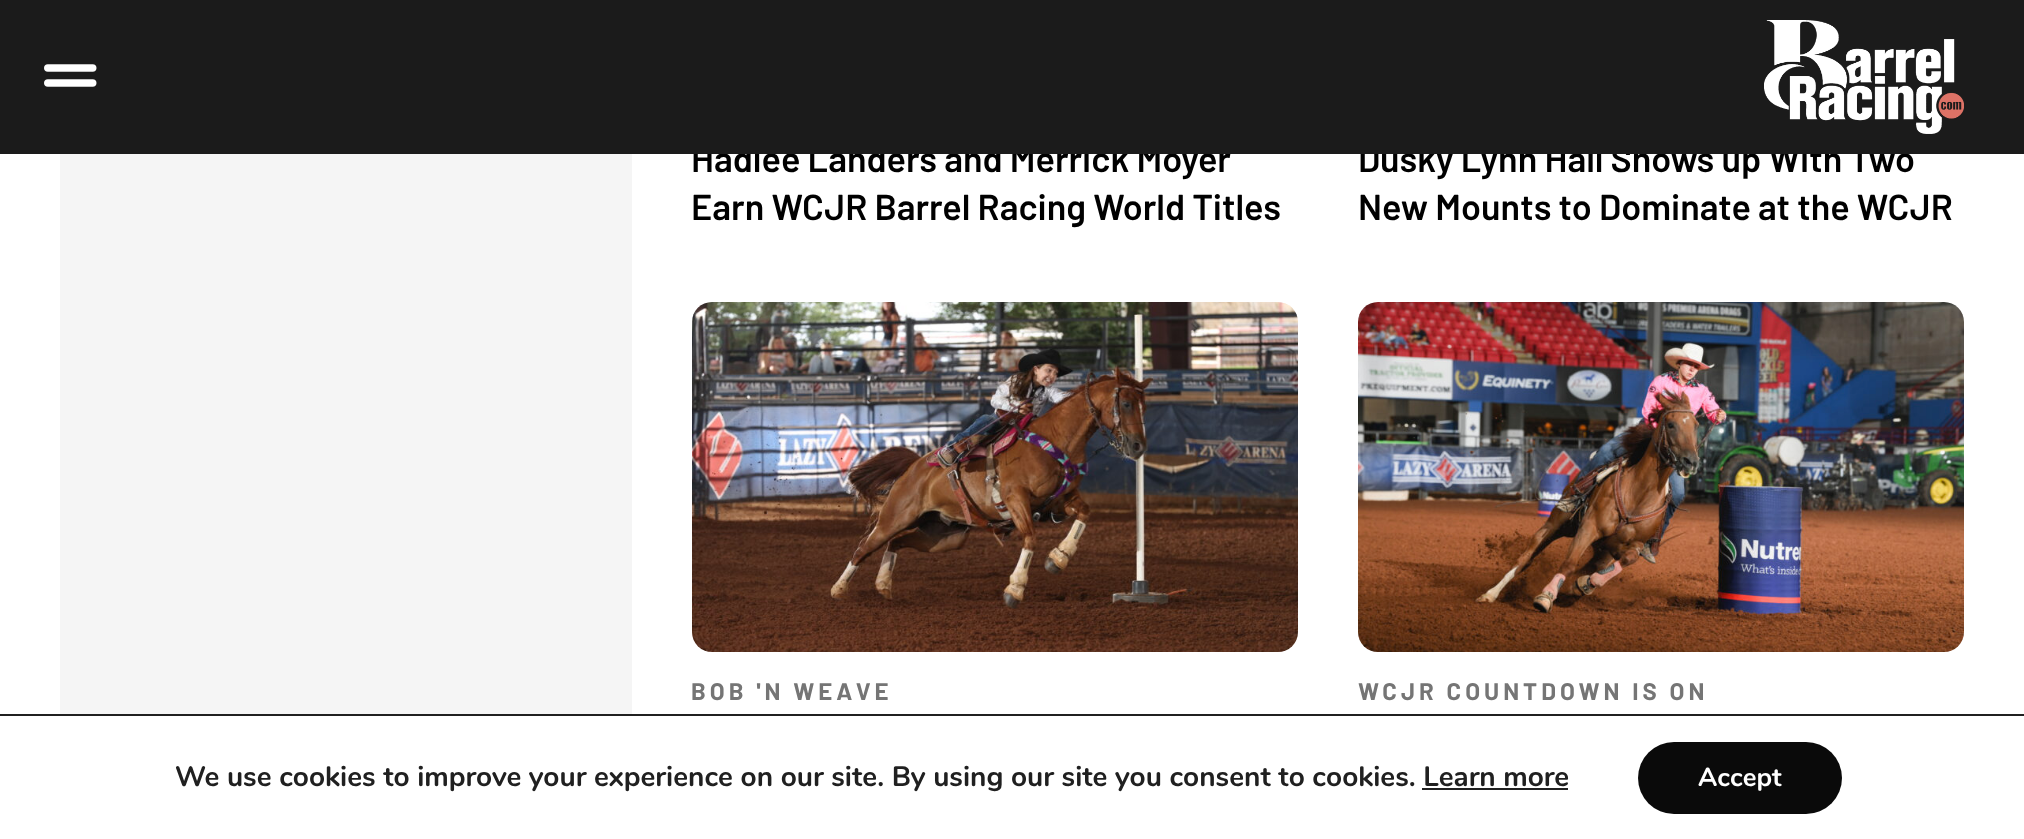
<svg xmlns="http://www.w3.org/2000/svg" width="2024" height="839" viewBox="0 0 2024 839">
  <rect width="100%" height="100%" fill="rgb(255,255,255)"/>
  <g font-family="Barlow" font-size="36" font-weight="600" fill="rgb(0,0,0)">
    <text x="691" y="172">Hadlee Landers and Merrick Moyer</text>
    <text x="1358" y="172">Dusky Lynn Hall Shows up With Two</text>
  </g>
  <rect x="0" y="0" width="2024" height="154" fill="rgb(27,27,27)"/>
  <image x="44" y="64" width="53" height="23" href="pic1.png"/>
  <image x="1764" y="20" width="200" height="114" href="pic2.png"/>
  <rect x="60" y="154" width="572" height="560" fill="rgb(245,245,245)"/>
  <g font-family="Barlow" font-size="36" font-weight="600" fill="rgb(0,0,0)">
    <text x="691" y="220">Earn WCJR Barrel Racing World Titles</text>
    <text x="1358" y="220">New Mounts to Dominate at the WCJR</text>
  </g>
  <image x="692" y="302" width="606" height="350" href="pic3.png"/>
  <text x="691" y="700" font-family="Barlow" font-size="24" font-weight="bold" letter-spacing="4" fill="rgb(117,117,117)">BOB 'N WEAVE</text>
  <image x="1358" y="302" width="606" height="350" href="pic4.png"/>
  <text x="1358" y="700" font-family="Barlow" font-size="24" font-weight="bold" letter-spacing="4" fill="rgb(117,117,117)">WCJR COUNTDOWN IS ON</text>
  <rect x="0" y="714" width="2024" height="2" fill="rgb(32,32,32)"/>
  <text x="175" y="786" font-family="Nunito" font-size="28" font-weight="bold" fill="rgb(32,32,32)">We use cookies to improve your experience on our site. By using our site you consent to cookies. Learn more</text>
  <rect x="1422" y="788" width="146" height="2" fill="rgb(32,32,32)"/>
  <rect x="1638" y="742" width="204" height="72" rx="36" fill="rgb(10,10,10)"/>
  <text x="1698" y="786" font-family="Nunito" font-size="26" font-weight="bold" fill="rgb(255,255,255)">Accept</text>
</svg>
